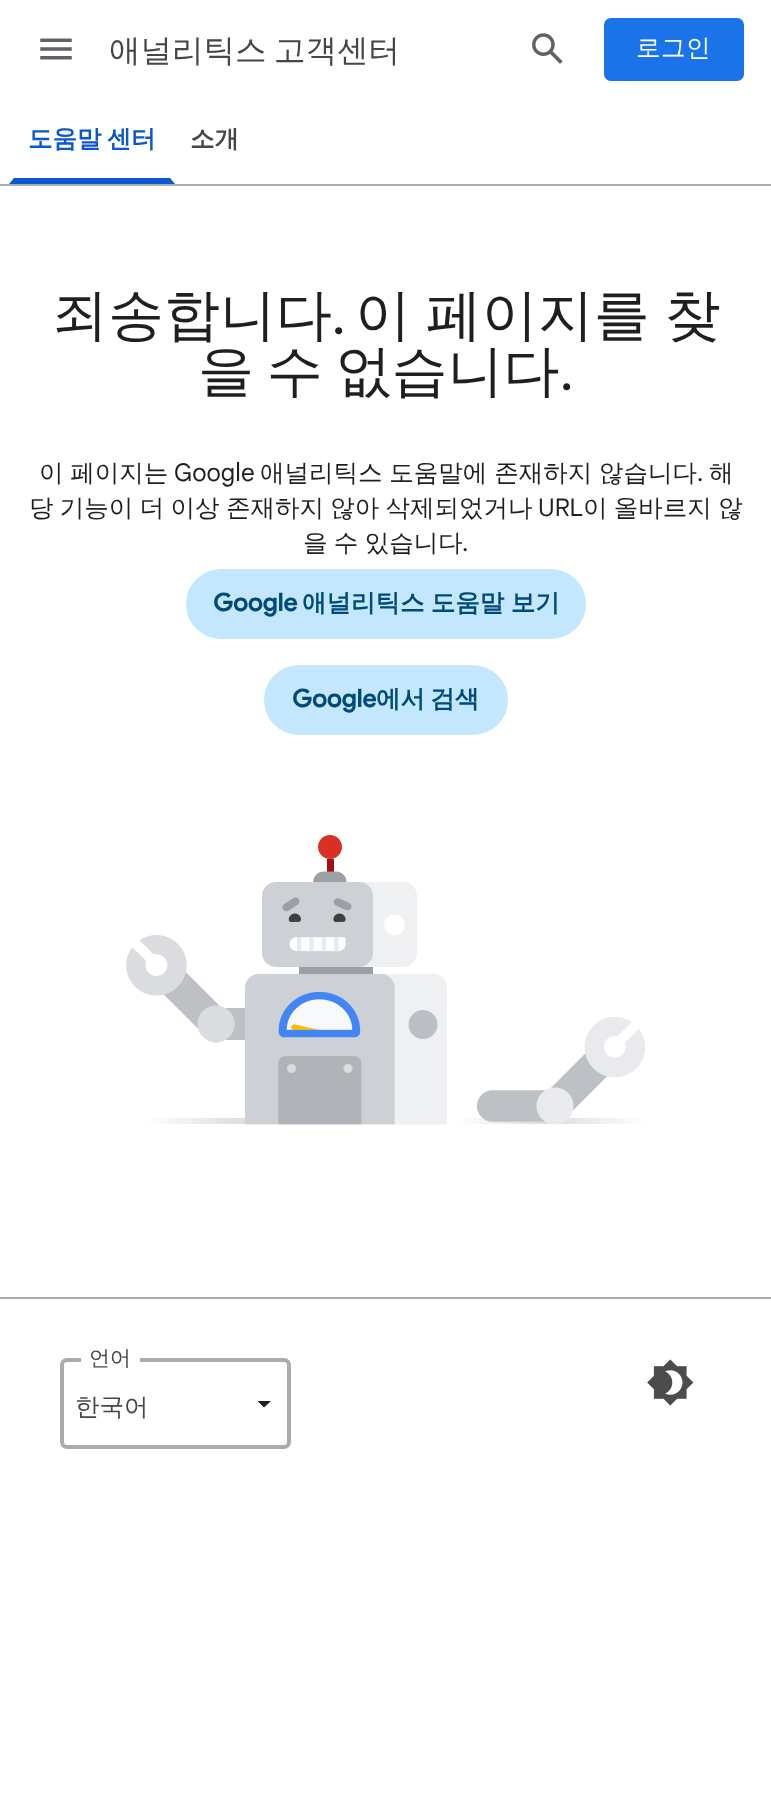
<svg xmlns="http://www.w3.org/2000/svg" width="771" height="1810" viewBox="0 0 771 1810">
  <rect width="100%" height="100%" fill="rgb(255,255,255)"/>
  <image x="40" y="38" width="32" height="22" href="pic1.png"/>
  <text x="109" y="61" word-spacing="-2" font-family="WenQuanYi Zen Hei" font-size="31.5" font-weight="500" fill="rgb(68,71,70)">애널리틱스 고객센터</text>
  <image x="532" y="33" width="31" height="31" href="pic2.png"/>
  <rect x="604" y="18" width="140" height="63" rx="7" fill="rgb(26,115,232)"/>
  <text x="636" y="56" font-family="WenQuanYi Zen Hei" font-size="24.5" font-weight="500" letter-spacing="0.5" fill="rgb(255,255,255)">로그인</text>
  <rect x="0" y="184" width="771" height="2" fill="rgb(169,172,170)"/>
  <path d="M175 184H9L14 178H170Z" fill="rgb(11,87,208)"/>
  <text x="28" y="147" word-spacing="-2" font-family="WenQuanYi Zen Hei" font-size="24.5" font-weight="bold" fill="rgb(11,87,208)">도움말 센터</text>
  <text x="190" y="147" font-family="WenQuanYi Zen Hei" font-size="24.5" font-weight="bold" fill="rgb(68,71,70)">소개</text>
  <text x="52" y="334" font-family="WenQuanYi Zen Hei" font-size="56" font-weight="500" fill="rgb(31,31,31)">죄송합니다</text>
  <text x="332" y="334" font-family="Google Sans" font-size="56" fill="rgb(31,31,31)">.</text>
  <g font-family="WenQuanYi Zen Hei" font-size="56" font-weight="500" fill="rgb(31,31,31)">
    <text x="355" y="334" word-spacing="-2">이 페이지를 찾</text>
    <text x="198" y="390" word-spacing="-4">을 수 없습니다</text>
  </g>
  <text x="560" y="390" font-family="Google Sans" font-size="56" fill="rgb(31,31,31)">.</text>
  <text x="39" y="481" word-spacing="-0.5" font-family="WenQuanYi Zen Hei" font-size="24.5" font-weight="500" fill="rgb(31,31,31)">이 페이지는</text>
  <text x="174" y="481" font-family="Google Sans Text" font-size="24.5" fill="rgb(31,31,31)">Google</text>
  <text x="260" y="481" word-spacing="-0.5" font-family="WenQuanYi Zen Hei" font-size="24.5" font-weight="500" fill="rgb(31,31,31)">애널리틱스 도움말에 존재하지 않습니다</text>
  <text x="697" y="481" font-family="Google Sans Text" font-size="24.5" fill="rgb(31,31,31)">.</text>
  <g font-family="WenQuanYi Zen Hei" font-size="24.5" font-weight="500" fill="rgb(31,31,31)">
    <text x="709" y="481">해</text>
    <text x="29" y="516" word-spacing="-1">당 기능이 더 이상 존재하지 않아 삭제되었거나</text>
  </g>
  <text x="538" y="516" font-family="Google Sans Text" font-size="24.5" fill="rgb(31,31,31)">URL</text>
  <g font-family="WenQuanYi Zen Hei" font-size="24.5" font-weight="500" fill="rgb(31,31,31)">
    <text x="583" y="516" word-spacing="-1">이 올바르지 않</text>
    <text x="303" y="551" word-spacing="-1">을 수 있습니다</text>
  </g>
  <text x="462" y="551" font-family="Google Sans Text" font-size="24.5" fill="rgb(31,31,31)">.</text>
  <rect x="186" y="569" width="400" height="70" rx="35" fill="rgb(194,231,255)"/>
  <text x="213" y="611" font-family="Google Sans" font-size="24.5" font-weight="bold" fill="rgb(0,74,119)">Google</text>
  <text x="302" y="611" word-spacing="-1" font-family="WenQuanYi Zen Hei" font-size="24.5" font-weight="bold" fill="rgb(0,74,119)">애널리틱스 도움말 보기</text>
  <rect x="264" y="665" width="244" height="70" rx="35" fill="rgb(194,231,255)"/>
  <text x="292" y="707" font-family="Google Sans" font-size="24.5" font-weight="bold" fill="rgb(0,74,119)">Google</text>
  <text x="376" y="707" word-spacing="-2" font-family="WenQuanYi Zen Hei" font-size="24.5" font-weight="bold" fill="rgb(0,74,119)">에서 검색</text>
  <image x="126" y="835" width="519" height="290" href="pic3.png"/>
  <rect x="0" y="1297" width="771" height="2" fill="rgb(169,172,170)"/>
  <rect x="62" y="1360" width="227" height="87" rx="5" fill="none" stroke="rgb(169,172,170)" stroke-width="4"/>
  <rect x="81" y="1358" width="59" height="4" fill="rgb(255,255,255)"/>
  <text x="89" y="1365" font-family="WenQuanYi Zen Hei" font-size="21" font-weight="500" fill="rgb(68,71,70)">언어</text>
  <text x="75" y="1415" font-family="WenQuanYi Zen Hei" font-size="24.5" font-weight="500" fill="rgb(68,71,70)">한국어</text>
  <path d="M257.5 1401L264 1407.5L271 1401Z" fill="rgb(31,31,31)"/>
  <image x="647" y="1359" width="47" height="47" href="pic4.png"/>
</svg>
